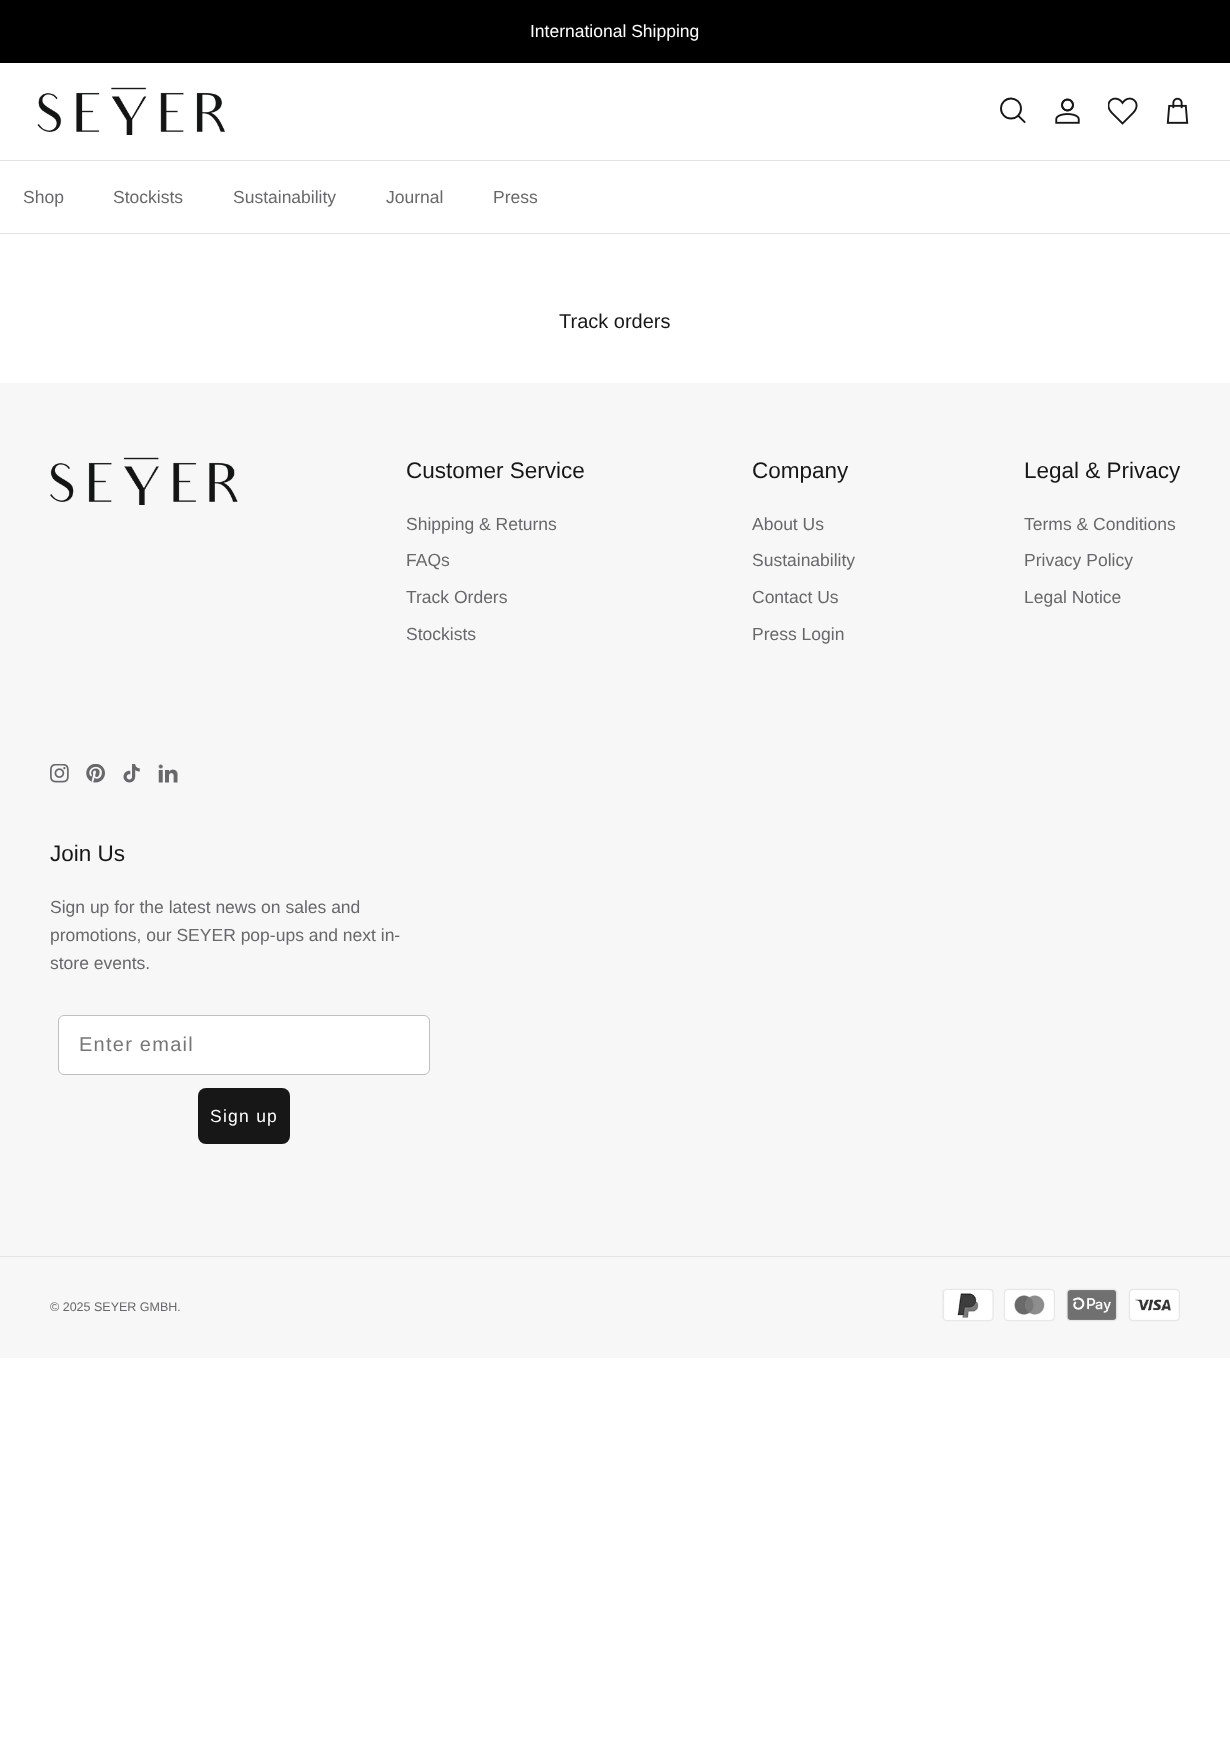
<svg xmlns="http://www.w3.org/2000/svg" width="1230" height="1750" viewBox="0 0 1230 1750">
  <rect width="100%" height="100%" fill="rgb(255,255,255)"/>
  <rect x="0" y="0" width="1230" height="63" fill="rgb(0,0,0)"/>
  <text x="530" y="37" font-family="Liberation Sans" font-size="17.5" fill="rgb(255,255,255)">International Shipping</text>
  <rect x="0" y="160" width="1230" height="1" fill="rgb(226,226,226)"/>
  <image x="37" y="87" width="188" height="48" href="pic1.png"/>
  <circle cx="1011" cy="108.5" r="10" fill="none" stroke="rgb(23,23,23)" stroke-width="1.9"/>
  <path d="M1018.5 116L1024.5 122" fill="none" stroke="rgb(23,23,23)" stroke-width="1.9" stroke-linecap="square"/>
  <image x="1055" y="98" width="25" height="26" href="pic2.png"/>
  <image x="1108" y="97" width="30" height="28" href="pic3.png"/>
  <image x="1166" y="97" width="23" height="27" href="pic4.png"/>
  <rect x="0" y="233" width="1230" height="1" fill="rgb(226,226,226)"/>
  <g font-family="Liberation Sans" font-size="17.5" fill="rgb(103,104,105)">
    <text x="23" y="203">Shop</text>
    <text x="113" y="203">Stockists</text>
    <text x="233" y="203">Sustainability</text>
    <text x="386" y="203">Journal</text>
    <text x="493" y="203">Press</text>
  </g>
  <text x="559" y="328" font-family="Liberation Sans" font-size="20" fill="rgb(23,23,23)">Track orders</text>
  <rect x="0" y="383" width="1230" height="975" fill="rgb(247,247,247)"/>
  <image x="50" y="457" width="188" height="48" href="pic5.png"/>
  <image x="50" y="764" width="19" height="19" href="pic6.png"/>
  <image x="86" y="764" width="19" height="19" href="pic7.png"/>
  <image x="123" y="764" width="17" height="19" href="pic8.png"/>
  <image x="158" y="764" width="20" height="19" href="pic9.png"/>
  <text x="406" y="478" font-family="Liberation Sans" font-size="22.5" fill="rgb(23,23,23)">Customer Service</text>
  <g font-family="Liberation Sans" font-size="17.5" fill="rgb(103,104,105)">
    <text x="406" y="530">Shipping &amp; Returns</text>
    <text x="406" y="566">FAQs</text>
    <text x="406" y="603">Track Orders</text>
    <text x="406" y="640">Stockists</text>
  </g>
  <text x="752" y="478" font-family="Liberation Sans" font-size="22.5" fill="rgb(23,23,23)">Company</text>
  <g font-family="Liberation Sans" font-size="17.5" fill="rgb(103,104,105)">
    <text x="752" y="530">About Us</text>
    <text x="752" y="566">Sustainability</text>
    <text x="752" y="603">Contact Us</text>
    <text x="752" y="640">Press Login</text>
  </g>
  <text x="1024" y="478" font-family="Liberation Sans" font-size="22.5" fill="rgb(23,23,23)">Legal &amp; Privacy</text>
  <g font-family="Liberation Sans" font-size="17.5" fill="rgb(103,104,105)">
    <text x="1024" y="530">Terms &amp; Conditions</text>
    <text x="1024" y="566">Privacy Policy</text>
    <text x="1024" y="603">Legal Notice</text>
  </g>
  <text x="50" y="861" font-family="Liberation Sans" font-size="22.5" fill="rgb(23,23,23)">Join Us</text>
  <g font-family="Liberation Sans" font-size="17.5" fill="rgb(103,104,105)">
    <text>
      <tspan x="50" y="913">Sign up for the latest news on sales and</tspan>
      <tspan x="50" y="941">promotions, our SEYER pop-ups and next in-</tspan>
      <tspan x="50" y="969">store events.</tspan>
    </text>
  </g>
  <rect x="58.5" y="1015.5" width="371" height="59" rx="5.5" fill="rgb(255,255,255)" stroke="rgb(191,191,191)"/>
  <text x="79" y="1051" font-family="Liberation Sans" font-size="20" letter-spacing="1.25" fill="rgb(118,118,118)">Enter email</text>
  <rect x="198" y="1088" width="92" height="56" rx="8" fill="rgb(23,23,23)"/>
  <text x="210" y="1122" font-family="Liberation Sans" font-size="17.5" letter-spacing="1.25" fill="rgb(255,255,255)">Sign up</text>
  <rect x="0" y="1256" width="1230" height="1" fill="rgb(228,228,228)"/>
  <text x="50" y="1311" font-family="Liberation Sans" font-size="12.5" fill="rgb(103,104,105)">© 2025 SEYER GMBH.</text>
  <image x="942" y="1288" width="52" height="34" href="pic10.png"/>
  <image x="1003" y="1288" width="52" height="34" href="pic11.png"/>
  <image x="1066" y="1288" width="52" height="34" href="pic12.png"/>
  <image x="1128" y="1288" width="52" height="34" href="pic13.png"/>
</svg>
